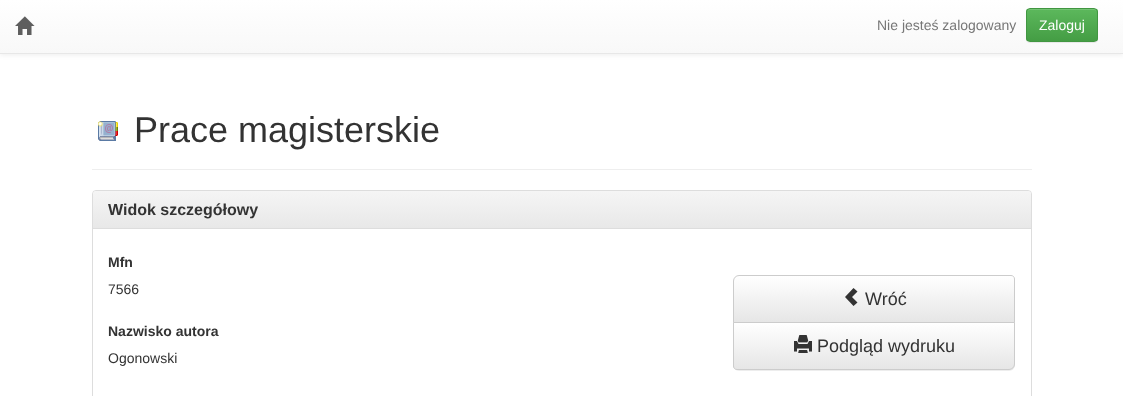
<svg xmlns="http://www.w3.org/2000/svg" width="1123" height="396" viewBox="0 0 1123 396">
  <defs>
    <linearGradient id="g1" gradientUnits="userSpaceOnUse" x1="562" y1="0" x2="562" y2="53"><stop offset="0" stop-color="rgb(255,255,255)"/><stop offset="1" stop-color="rgb(248,248,248)"/></linearGradient>
    <clipPath id="clip1"><rect x="1026" y="8" width="72" height="34" rx="4"/></clipPath>
    <linearGradient id="g2" gradientUnits="userSpaceOnUse" x1="1062" y1="9" x2="1062" y2="41"><stop offset="0" stop-color="rgb(92,184,92)"/><stop offset="1" stop-color="rgb(68,157,68)"/></linearGradient>
    <linearGradient id="g3" gradientUnits="userSpaceOnUse" x1="562" y1="191" x2="562" y2="228"><stop offset="0" stop-color="rgb(245,245,245)"/><stop offset="1" stop-color="rgb(232,232,232)"/></linearGradient>
    <clipPath id="clip2"><path d="M739 275H1011C1013 275 1015 277 1015 279V323H733V281C733 277.5 735.5 275 739 275Z"/></clipPath>
    <linearGradient id="g4" gradientUnits="userSpaceOnUse" x1="874" y1="276" x2="874" y2="322"><stop offset="0" stop-color="rgb(255,255,255)"/><stop offset="1" stop-color="rgb(230,230,230)"/></linearGradient>
    <clipPath id="clip3"><path d="M733 322H1015V364C1015 367.5 1012.5 370 1009 370H737C735 370 733 368 733 366Z"/></clipPath>
    <linearGradient id="g5" gradientUnits="userSpaceOnUse" x1="874" y1="323" x2="874" y2="369"><stop offset="0" stop-color="rgb(255,255,255)"/><stop offset="1" stop-color="rgb(230,230,230)"/></linearGradient>
  </defs>
  <rect width="100%" height="100%" fill="rgb(255,255,255)"/>
  <rect x="0" y="1" width="1123" height="54" fill="rgba(0,0,0,0.07)" filter="blur(2.5px)"/>
  <rect x="0" y="0" width="1123" height="53" fill="url(#g1)"/>
  <rect x="0" y="53" width="1123" height="1" fill="rgb(231,231,231)"/>
  <image x="15" y="16" width="20" height="19" href="pic1.png"/>
  <text x="877" y="30" font-family="Liberation Sans" font-size="14" fill="rgb(119,119,119)">Nie jesteś zalogowany</text>
  <rect x="1026" y="9" width="72" height="34" rx="4" fill="rgba(0,0,0,0.07)" filter="blur(0.5px)"/>
  <g clip-path="url(#clip1)">
    <rect x="1026" y="9" width="72" height="32" fill="url(#g2)"/>
  </g>
  <path d="M1030 10H1094C1096 10 1097 11 1097 13C1097 6 1088 9 1083 9H1041C1036 9 1027 6 1027 13C1027 11 1028 10 1030 10Z" fill="rgb(116,195,116)"/>
  <rect x="1026.5" y="8.5" width="71" height="33" rx="3.5" fill="none" stroke="rgb(65,150,65)"/>
  <text x="1039" y="30" font-family="Liberation Sans" font-size="14" fill="rgb(255,255,255)">Zaloguj</text>
  <rect x="92" y="169" width="940" height="1" fill="rgb(238,238,238)"/>
  <image x="98" y="121" width="20" height="20" href="pic2.png"/>
  <text x="134" y="142" font-family="Liberation Sans" font-size="36" fill="rgb(51,51,51)">Prace magisterskie</text>
  <rect x="92.5" y="190.5" width="939" height="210" rx="3.5" fill="none" stroke="rgb(221,221,221)"/>
  <path d="M96 191H1028C1029.5 191 1031 192.5 1031 194V228H93V194C93 192.5 94.5 191 96 191Z" fill="url(#g3)"/>
  <rect x="93" y="228" width="938" height="1" fill="rgb(221,221,221)"/>
  <text x="108" y="215" font-family="Liberation Sans" font-size="16" font-weight="bold" fill="rgb(51,51,51)">Widok szczegółowy</text>
  <text x="108" y="267" font-family="Liberation Sans" font-size="14" font-weight="bold" fill="rgb(51,51,51)">Mfn</text>
  <text x="108" y="294" font-family="Liberation Sans" font-size="14" fill="rgb(51,51,51)">7566</text>
  <text x="108" y="336" font-family="Liberation Sans" font-size="14" font-weight="bold" fill="rgb(51,51,51)">Nazwisko autora</text>
  <text x="108" y="363" font-family="Liberation Sans" font-size="14" fill="rgb(51,51,51)">Ogonowski</text>
  <g clip-path="url(#clip2)">
    <rect x="733" y="276" width="282" height="46" fill="url(#g4)"/>
  </g>
  <path d="M739 275.5H1011C1013 275.5 1014.5 277 1014.5 279V322.5H733.5V281C733.5 278 736 275.5 739 275.5Z" fill="none" stroke="rgb(204,204,204)"/>
  <path d="M853.5 306L857.5 302.5L852 297L857.5 291.5L853.5 288L845 297Z" fill="rgb(51,51,51)"/>
  <text x="865" y="305" font-family="Liberation Sans" font-size="18" fill="rgb(51,51,51)">Wróć</text>
  <rect x="733" y="323" width="282" height="48" rx="6" fill="rgba(0,0,0,0.07)" filter="blur(0.5px)"/>
  <g clip-path="url(#clip3)">
    <rect x="733" y="323" width="282" height="46" fill="url(#g5)"/>
  </g>
  <path d="M733.5 322.5H1014.5V364C1014.5 367 1012 369.5 1009 369.5H737C735 369.5 733.5 368 733.5 366Z" fill="none" stroke="rgb(204,204,204)"/>
  <image x="794" y="335" width="18" height="18" href="pic3.png"/>
  <text x="817" y="352" font-family="Liberation Sans" font-size="18" fill="rgb(51,51,51)">Podgląd wydruku</text>
</svg>
